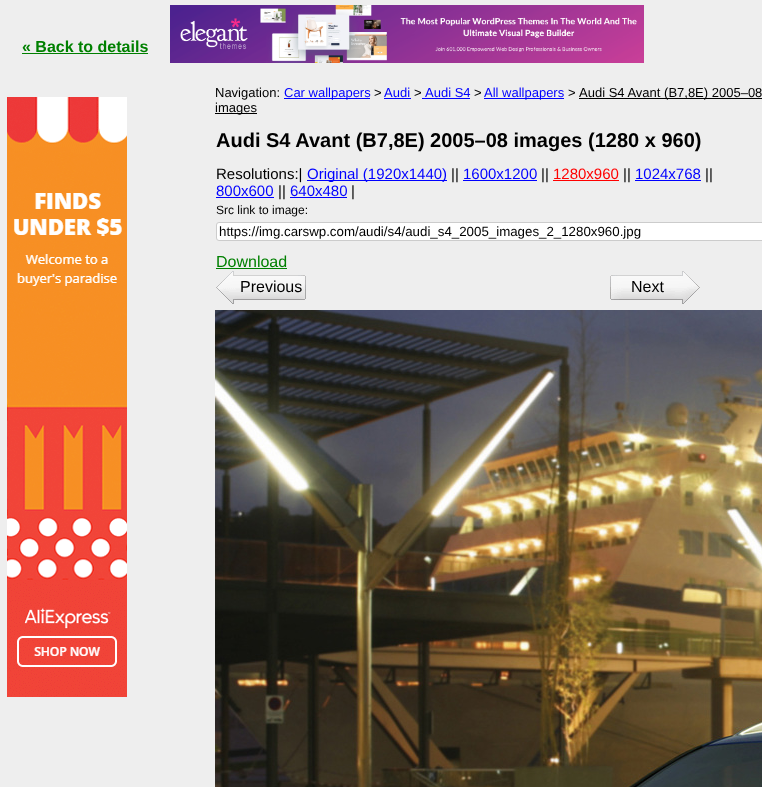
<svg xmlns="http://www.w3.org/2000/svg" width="762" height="787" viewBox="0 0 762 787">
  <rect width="100%" height="100%" fill="rgb(238,238,238)"/>
  <image x="170" y="5" width="474" height="58" href="pic1.png"/>
  <text x="22" y="52" font-family="Liberation Sans" font-size="16" font-weight="bold" fill="rgb(0,128,0)">« Back to details</text>
  <rect x="22" y="53" width="126" height="1" fill="rgb(0,128,0)"/>
  <image x="7" y="97" width="120" height="600" href="pic2.png"/>
  <text x="215" y="97" font-family="Liberation Sans" font-size="13" fill="rgb(0,0,0)">Navigation:</text>
  <rect x="284" y="98" width="86" height="1" fill="rgb(0,0,255)"/>
  <text x="284" y="97" font-family="Liberation Sans" font-size="13" fill="rgb(0,0,255)">Car wallpapers</text>
  <text x="374" y="97" font-family="Liberation Sans" font-size="13" fill="rgb(0,0,0)">&gt;</text>
  <text x="384" y="97" font-family="Liberation Sans" font-size="13" fill="rgb(0,0,255)">Audi</text>
  <rect x="384" y="98" width="27" height="1" fill="rgb(0,0,255)"/>
  <text x="414" y="97" font-family="Liberation Sans" font-size="13" fill="rgb(0,0,0)">&gt;</text>
  <text x="425" y="97" font-family="Liberation Sans" font-size="13" fill="rgb(0,0,255)">Audi S4</text>
  <rect x="422" y="98" width="48" height="1" fill="rgb(0,0,255)"/>
  <text x="474" y="97" font-family="Liberation Sans" font-size="13" fill="rgb(0,0,0)">&gt;</text>
  <rect x="484" y="98" width="80" height="1" fill="rgb(0,0,255)"/>
  <text x="484" y="97" font-family="Liberation Sans" font-size="13" fill="rgb(0,0,255)">All wallpapers</text>
  <text x="568" y="97" font-family="Liberation Sans" font-size="13" fill="rgb(0,0,0)">&gt;</text>
  <rect x="579" y="98" width="183" height="1" fill="rgb(0,0,0)"/>
  <text x="579" y="97" font-family="Liberation Sans" font-size="13" fill="rgb(0,0,0)">Audi S4 Avant (B7,8E) 2005–08</text>
  <rect x="215" y="113" width="42" height="1" fill="rgb(0,0,0)"/>
  <text x="215" y="112" font-family="Liberation Sans" font-size="13" fill="rgb(0,0,0)">images</text>
  <text x="216" y="147" font-family="Liberation Sans" font-size="20" font-weight="bold" fill="rgb(0,0,0)">Audi S4 Avant (B7,8E) 2005–08 images (1280 x 960)</text>
  <text x="216" y="179" font-family="Liberation Sans" font-size="15" fill="rgb(0,0,0)">Resolutions:|</text>
  <rect x="307" y="180" width="140" height="1" fill="rgb(0,0,255)"/>
  <text x="307" y="179" font-family="Liberation Sans" font-size="15" fill="rgb(0,0,255)">Original (1920x1440)</text>
  <text x="451" y="179" font-family="Liberation Sans" font-size="15" fill="rgb(0,0,0)">||</text>
  <text x="463" y="179" font-family="Liberation Sans" font-size="15" fill="rgb(0,0,255)">1600x1200</text>
  <rect x="463" y="180" width="74" height="1" fill="rgb(0,0,255)"/>
  <text x="541" y="179" font-family="Liberation Sans" font-size="15" fill="rgb(0,0,0)">||</text>
  <text x="553" y="179" font-family="Liberation Sans" font-size="15" fill="rgb(255,0,0)">1280x960</text>
  <rect x="553" y="180" width="66" height="1" fill="rgb(255,0,0)"/>
  <text x="623" y="179" font-family="Liberation Sans" font-size="15" fill="rgb(0,0,0)">||</text>
  <text x="635" y="179" font-family="Liberation Sans" font-size="15" fill="rgb(0,0,255)">1024x768</text>
  <rect x="635" y="180" width="66" height="1" fill="rgb(0,0,255)"/>
  <text x="705" y="179" font-family="Liberation Sans" font-size="15" fill="rgb(0,0,0)">||</text>
  <text x="216" y="196" font-family="Liberation Sans" font-size="15" fill="rgb(0,0,255)">800x600</text>
  <rect x="216" y="197" width="58" height="1" fill="rgb(0,0,255)"/>
  <text x="278" y="196" font-family="Liberation Sans" font-size="15" fill="rgb(0,0,0)">||</text>
  <text x="290" y="196" font-family="Liberation Sans" font-size="15" fill="rgb(0,0,255)">640x480</text>
  <rect x="290" y="197" width="57" height="1" fill="rgb(0,0,255)"/>
  <text x="351" y="196" font-family="Liberation Sans" font-size="15" fill="rgb(0,0,0)">|</text>
  <text x="216" y="214" font-family="Liberation Sans" font-size="12" fill="rgb(0,0,0)">Src link to image:</text>
  <rect x="216.5" y="222.5" width="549" height="18" rx="2.5" fill="rgb(255,255,255)" stroke="rgb(204,204,204)"/>
  <text x="219" y="236" font-family="Liberation Sans" font-size="13.3" fill="rgb(0,0,0)">https://img.carswp.com/audi/s4/audi_s4_2005_images_2_1280x960.jpg</text>
  <text x="216" y="267" font-family="Liberation Sans" font-size="16" fill="rgb(0,128,0)">Download</text>
  <rect x="216" y="268" width="71" height="1" fill="rgb(0,128,0)"/>
  <image x="216" y="271" width="90" height="33" href="pic3.png"/>
  <text x="240" y="292" font-family="Liberation Sans" font-size="16" fill="rgb(0,0,0)">Previous</text>
  <image x="610" y="271" width="90" height="33" href="pic4.png"/>
  <text x="631" y="292" font-family="Liberation Sans" font-size="16" fill="rgb(0,0,0)">Next</text>
  <image x="215" y="310" width="547" height="477" href="pic5.png"/>
</svg>
